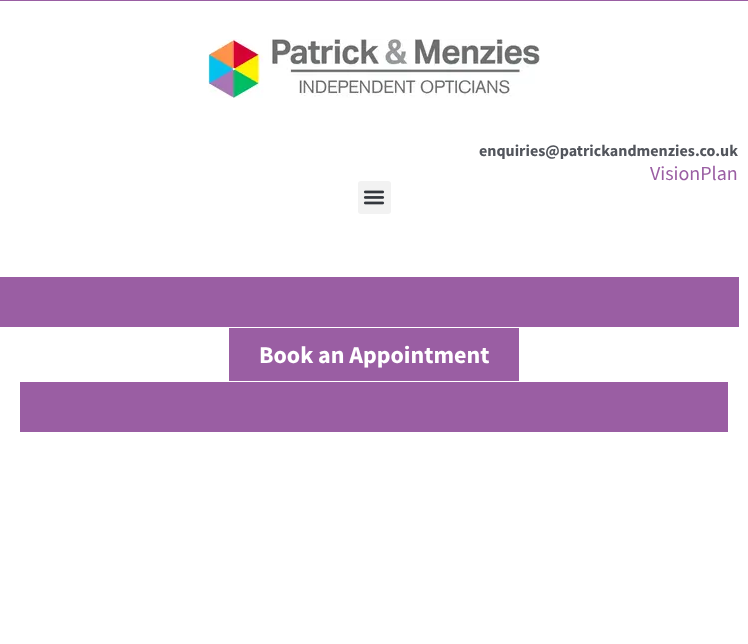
<svg xmlns="http://www.w3.org/2000/svg" width="748" height="644" viewBox="0 0 748 644">
  <rect width="100%" height="100%" fill="rgb(255,255,255)"/>
  <rect x="0" y="0" width="748" height="1" fill="rgb(154,94,163)"/>
  <image x="208" y="39" width="332" height="59" href="pic1.png"/>
  <text x="479" y="156" font-family="Source Sans Pro" font-size="16" font-weight="bold" fill="rgb(82,85,92)">enquiries@patrickandmenzies.co.uk</text>
  <text x="650" y="180" font-family="Source Sans Pro" font-size="20" fill="rgb(154,94,163)">VisionPlan</text>
  <rect x="358" y="181" width="33" height="33" rx="3" fill="rgb(242,242,242)"/>
  <image x="363" y="190" width="22" height="15" href="pic2.png"/>
  <rect x="0" y="277" width="739" height="50" fill="rgb(154,94,163)"/>
  <rect x="229" y="328" width="290" height="53" fill="rgb(154,94,163)"/>
  <text x="259" y="363" font-family="Source Sans Pro" font-size="24" font-weight="bold" fill="rgb(255,255,255)">Book an Appointment</text>
  <rect x="20" y="382" width="708" height="50" fill="rgb(154,94,163)"/>
</svg>
